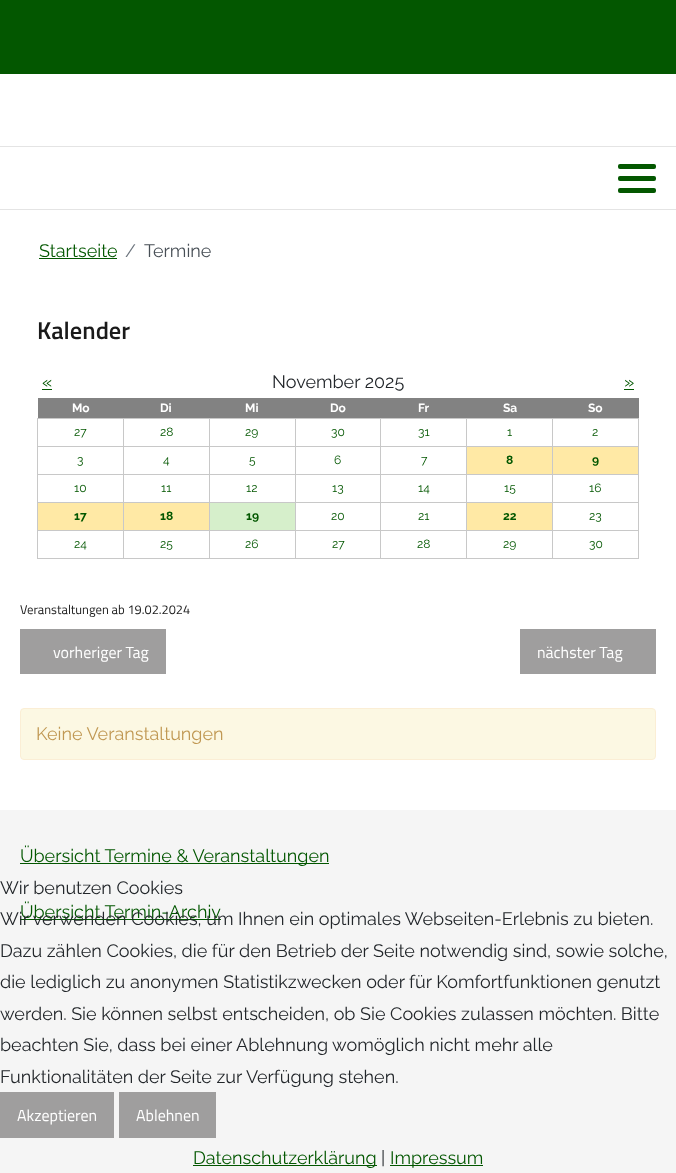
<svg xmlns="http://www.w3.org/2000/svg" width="676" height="1173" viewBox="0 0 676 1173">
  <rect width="100%" height="100%" fill="rgb(255,255,255)"/>
  <rect x="0" y="0" width="676" height="74" fill="rgb(3,87,0)"/>
  <rect x="0" y="146" width="676" height="1" fill="rgb(228,228,228)"/>
  <rect x="0" y="209" width="676" height="1" fill="rgb(228,228,228)"/>
  <rect x="618" y="176" width="38" height="5" rx="2" fill="rgb(3,87,0)"/>
  <rect x="618" y="164" width="38" height="5" rx="2" fill="rgb(3,87,0)"/>
  <rect x="618" y="188" width="38" height="5" rx="2" fill="rgb(3,87,0)"/>
  <text x="39" y="257" font-family="Raleway" font-size="18" fill="rgb(3,87,0)">Startseite</text>
  <rect x="39" y="258" width="78" height="1" fill="rgb(3,87,0)"/>
  <text x="125" y="257" font-family="Raleway" font-size="18" fill="rgb(109,117,126)">/</text>
  <text x="144" y="257" font-family="Raleway" font-size="18" fill="rgb(72,79,86)">Termine</text>
  <text x="37" y="339" font-family="Titillium Web" font-size="24.5" font-weight="600" fill="rgb(26,26,26)">Kalender</text>
  <text x="42" y="388" font-family="Raleway" font-size="18" fill="rgb(3,87,0)">«</text>
  <rect x="42" y="389" width="10" height="1" fill="rgb(3,87,0)"/>
  <text x="272" y="388" font-family="Raleway" font-size="18" fill="rgb(34,38,42)">November 2025</text>
  <text x="624" y="388" font-family="Raleway" font-size="18" fill="rgb(3,87,0)">»</text>
  <rect x="624" y="389" width="10" height="1" fill="rgb(3,87,0)"/>
  <rect x="38" y="398" width="601" height="20" fill="rgb(130,130,130)"/>
  <g font-family="Raleway" font-size="12" font-weight="bold" fill="rgb(255,255,255)">
    <text x="72" y="412">Mo</text>
    <text x="160" y="412">Di</text>
    <text x="245" y="412">Mi</text>
    <text x="330" y="412">Do</text>
    <text x="418" y="412">Fr</text>
    <text x="503" y="412">Sa</text>
    <text x="588" y="412">So</text>
  </g>
  <rect x="552" y="418" width="87" height="1" fill="rgb(200,200,200)"/>
  <rect x="552" y="446" width="87" height="1" fill="rgb(200,200,200)"/>
  <rect x="552" y="474" width="87" height="1" fill="rgb(200,200,200)"/>
  <rect x="552" y="502" width="87" height="1" fill="rgb(200,200,200)"/>
  <rect x="552" y="530" width="87" height="1" fill="rgb(200,200,200)"/>
  <rect x="638" y="530" width="1" height="29" fill="rgb(200,200,200)"/>
  <rect x="552" y="558" width="87" height="1" fill="rgb(200,200,200)"/>
  <rect x="552" y="530" width="1" height="29" fill="rgb(200,200,200)"/>
  <rect x="466" y="530" width="87" height="1" fill="rgb(200,200,200)"/>
  <rect x="552" y="502" width="1" height="29" fill="rgb(200,200,200)"/>
  <rect x="466" y="502" width="87" height="1" fill="rgb(200,200,200)"/>
  <rect x="552" y="474" width="1" height="29" fill="rgb(200,200,200)"/>
  <rect x="466" y="474" width="87" height="1" fill="rgb(200,200,200)"/>
  <rect x="552" y="446" width="1" height="29" fill="rgb(200,200,200)"/>
  <rect x="466" y="446" width="87" height="1" fill="rgb(200,200,200)"/>
  <rect x="552" y="418" width="1" height="29" fill="rgb(200,200,200)"/>
  <rect x="466" y="418" width="87" height="1" fill="rgb(200,200,200)"/>
  <rect x="466" y="558" width="87" height="1" fill="rgb(200,200,200)"/>
  <rect x="466" y="530" width="1" height="29" fill="rgb(200,200,200)"/>
  <rect x="380" y="530" width="87" height="1" fill="rgb(200,200,200)"/>
  <rect x="466" y="502" width="1" height="29" fill="rgb(200,200,200)"/>
  <rect x="380" y="502" width="87" height="1" fill="rgb(200,200,200)"/>
  <rect x="466" y="474" width="1" height="29" fill="rgb(200,200,200)"/>
  <rect x="380" y="474" width="87" height="1" fill="rgb(200,200,200)"/>
  <rect x="466" y="446" width="1" height="29" fill="rgb(200,200,200)"/>
  <rect x="380" y="446" width="87" height="1" fill="rgb(200,200,200)"/>
  <rect x="466" y="418" width="1" height="29" fill="rgb(200,200,200)"/>
  <rect x="380" y="418" width="87" height="1" fill="rgb(200,200,200)"/>
  <rect x="380" y="558" width="87" height="1" fill="rgb(200,200,200)"/>
  <rect x="380" y="530" width="1" height="29" fill="rgb(200,200,200)"/>
  <rect x="295" y="530" width="86" height="1" fill="rgb(200,200,200)"/>
  <rect x="380" y="502" width="1" height="29" fill="rgb(200,200,200)"/>
  <rect x="295" y="502" width="86" height="1" fill="rgb(200,200,200)"/>
  <rect x="380" y="474" width="1" height="29" fill="rgb(200,200,200)"/>
  <rect x="295" y="474" width="86" height="1" fill="rgb(200,200,200)"/>
  <rect x="380" y="446" width="1" height="29" fill="rgb(200,200,200)"/>
  <rect x="295" y="446" width="86" height="1" fill="rgb(200,200,200)"/>
  <rect x="380" y="418" width="1" height="29" fill="rgb(200,200,200)"/>
  <rect x="295" y="418" width="86" height="1" fill="rgb(200,200,200)"/>
  <rect x="295" y="558" width="86" height="1" fill="rgb(200,200,200)"/>
  <rect x="295" y="530" width="1" height="29" fill="rgb(200,200,200)"/>
  <rect x="209" y="530" width="87" height="1" fill="rgb(200,200,200)"/>
  <rect x="295" y="502" width="1" height="29" fill="rgb(200,200,200)"/>
  <rect x="209" y="502" width="87" height="1" fill="rgb(200,200,200)"/>
  <rect x="295" y="474" width="1" height="29" fill="rgb(200,200,200)"/>
  <rect x="209" y="474" width="87" height="1" fill="rgb(200,200,200)"/>
  <rect x="295" y="446" width="1" height="29" fill="rgb(200,200,200)"/>
  <rect x="209" y="446" width="87" height="1" fill="rgb(200,200,200)"/>
  <rect x="295" y="418" width="1" height="29" fill="rgb(200,200,200)"/>
  <rect x="209" y="418" width="87" height="1" fill="rgb(200,200,200)"/>
  <rect x="209" y="558" width="87" height="1" fill="rgb(200,200,200)"/>
  <rect x="209" y="530" width="1" height="29" fill="rgb(200,200,200)"/>
  <rect x="123" y="530" width="87" height="1" fill="rgb(200,200,200)"/>
  <rect x="209" y="502" width="1" height="29" fill="rgb(200,200,200)"/>
  <rect x="123" y="502" width="87" height="1" fill="rgb(200,200,200)"/>
  <rect x="209" y="474" width="1" height="29" fill="rgb(200,200,200)"/>
  <rect x="123" y="474" width="87" height="1" fill="rgb(200,200,200)"/>
  <rect x="209" y="446" width="1" height="29" fill="rgb(200,200,200)"/>
  <rect x="123" y="446" width="87" height="1" fill="rgb(200,200,200)"/>
  <rect x="209" y="418" width="1" height="29" fill="rgb(200,200,200)"/>
  <rect x="123" y="418" width="87" height="1" fill="rgb(200,200,200)"/>
  <rect x="123" y="558" width="87" height="1" fill="rgb(200,200,200)"/>
  <rect x="123" y="530" width="1" height="29" fill="rgb(200,200,200)"/>
  <rect x="37" y="530" width="87" height="1" fill="rgb(200,200,200)"/>
  <rect x="123" y="502" width="1" height="29" fill="rgb(200,200,200)"/>
  <rect x="37" y="502" width="87" height="1" fill="rgb(200,200,200)"/>
  <rect x="123" y="474" width="1" height="29" fill="rgb(200,200,200)"/>
  <rect x="37" y="474" width="87" height="1" fill="rgb(200,200,200)"/>
  <rect x="123" y="446" width="1" height="29" fill="rgb(200,200,200)"/>
  <rect x="37" y="446" width="87" height="1" fill="rgb(200,200,200)"/>
  <rect x="123" y="418" width="1" height="29" fill="rgb(200,200,200)"/>
  <rect x="37" y="418" width="87" height="1" fill="rgb(200,200,200)"/>
  <rect x="37" y="558" width="87" height="1" fill="rgb(200,200,200)"/>
  <rect x="37" y="530" width="1" height="29" fill="rgb(200,200,200)"/>
  <rect x="37" y="502" width="1" height="29" fill="rgb(200,200,200)"/>
  <rect x="37" y="474" width="1" height="29" fill="rgb(200,200,200)"/>
  <rect x="37" y="446" width="1" height="29" fill="rgb(200,200,200)"/>
  <rect x="37" y="418" width="1" height="29" fill="rgb(200,200,200)"/>
  <g font-family="Raleway" font-size="12" fill="rgb(3,87,0)">
    <text x="74" y="436">27</text>
    <text x="160" y="436">28</text>
    <text x="245" y="436">29</text>
    <text x="331" y="436">30</text>
    <text x="418" y="436">31</text>
    <text x="507" y="436">1</text>
  </g>
  <rect x="638" y="502" width="1" height="29" fill="rgb(200,200,200)"/>
  <rect x="638" y="474" width="1" height="29" fill="rgb(200,200,200)"/>
  <rect x="638" y="446" width="1" height="29" fill="rgb(200,200,200)"/>
  <rect x="638" y="418" width="1" height="29" fill="rgb(200,200,200)"/>
  <g font-family="Raleway" font-size="12" fill="rgb(3,87,0)">
    <text x="592" y="436">2</text>
    <text x="77" y="464">3</text>
    <text x="163" y="464">4</text>
    <text x="249" y="464">5</text>
    <text x="334" y="464">6</text>
    <text x="421" y="464">7</text>
  </g>
  <rect x="467" y="447" width="85" height="27" fill="rgb(255,233,165)"/>
  <text x="506" y="464" font-family="Raleway" font-size="12" font-weight="bold" fill="rgb(3,87,0)">8</text>
  <rect x="553" y="447" width="85" height="27" fill="rgb(255,233,165)"/>
  <text x="592" y="464" font-family="Raleway" font-size="12" font-weight="bold" fill="rgb(3,87,0)">9</text>
  <g font-family="Raleway" font-size="12" fill="rgb(3,87,0)">
    <text x="74" y="492">10</text>
    <text x="161" y="492">11</text>
    <text x="246" y="492">12</text>
    <text x="332" y="492">13</text>
    <text x="418" y="492">14</text>
    <text x="504" y="492">15</text>
    <text x="589" y="492">16</text>
  </g>
  <rect x="38" y="503" width="85" height="27" fill="rgb(255,233,165)"/>
  <text x="74" y="520" font-family="Raleway" font-size="12" font-weight="bold" fill="rgb(3,87,0)">17</text>
  <rect x="124" y="503" width="85" height="27" fill="rgb(255,233,165)"/>
  <text x="160" y="520" font-family="Raleway" font-size="12" font-weight="bold" fill="rgb(3,87,0)">18</text>
  <rect x="210" y="503" width="85" height="27" fill="rgb(214,239,203)"/>
  <text x="246" y="520" font-family="Raleway" font-size="12" font-weight="bold" fill="rgb(3,87,0)">19</text>
  <g font-family="Raleway" font-size="12" fill="rgb(3,87,0)">
    <text x="331" y="520">20</text>
    <text x="418" y="520">21</text>
  </g>
  <rect x="467" y="503" width="85" height="27" fill="rgb(255,233,165)"/>
  <text x="503" y="520" font-family="Raleway" font-size="12" font-weight="bold" fill="rgb(3,87,0)">22</text>
  <g font-family="Raleway" font-size="12" fill="rgb(3,87,0)">
    <text x="589" y="520">23</text>
    <text x="74" y="548">24</text>
    <text x="160" y="548">25</text>
    <text x="245" y="548">26</text>
    <text x="332" y="548">27</text>
    <text x="417" y="548">28</text>
    <text x="503" y="548">29</text>
    <text x="589" y="548">30</text>
  </g>
  <text x="20" y="614" font-family="Titillium Web" font-size="12.75" fill="rgb(26,26,26)">Veranstaltungen ab 19.02.2024</text>
  <rect x="20" y="629" width="146" height="45" fill="rgb(159,158,158)"/>
  <text x="53" y="658" font-family="Titillium Web" font-size="16" fill="rgb(255,255,255)">vorheriger Tag</text>
  <rect x="520" y="629" width="136" height="45" fill="rgb(159,158,158)"/>
  <text x="537" y="658" font-family="Titillium Web" font-size="16" fill="rgb(255,255,255)">nächster Tag</text>
  <rect x="20.5" y="708.5" width="635" height="51" rx="3.5" fill="rgb(252,248,227)" stroke="rgb(251,238,213)"/>
  <text x="36" y="740" font-family="Raleway" font-size="18" fill="rgb(192,152,83)">Keine Veranstaltungen</text>
  <rect x="0" y="810" width="676" height="363" fill="rgb(245,245,245)"/>
  <rect x="20" y="863" width="309" height="1" fill="rgb(3,87,0)"/>
  <g font-family="Raleway" font-size="18" fill="rgb(3,87,0)">
    <text x="20" y="862">Übersicht Termine &amp; Veranstaltungen</text>
    <text x="20" y="918">Übersicht Termin-Archiv</text>
  </g>
  <rect x="20" y="919" width="201" height="1" fill="rgb(3,87,0)"/>
  <g font-family="Raleway" font-size="18" fill="rgb(34,38,42)">
    <text>
      <tspan x="0" y="894">Wir benutzen Cookies</tspan>
      <tspan x="0" y="925">Wir verwenden Cookies, um Ihnen ein optimales Webseiten-Erlebnis zu bieten.</tspan>
      <tspan x="0" y="957">Dazu zählen Cookies, die für den Betrieb der Seite notwendig sind, sowie solche,</tspan>
      <tspan x="0" y="988">die lediglich zu anonymen Statistikzwecken oder für Komfortfunktionen genutzt</tspan>
      <tspan x="0" y="1020">werden. Sie können selbst entscheiden, ob Sie Cookies zulassen möchten. Bitte</tspan>
      <tspan x="0" y="1051">beachten Sie, dass bei einer Ablehnung womöglich nicht mehr alle</tspan>
      <tspan x="0" y="1083">Funktionalitäten der Seite zur Verfügung stehen.</tspan>
    </text>
  </g>
  <rect x="0" y="1092" width="114" height="46" fill="rgb(159,158,158)"/>
  <text x="17" y="1121" font-family="Titillium Web" font-size="16" fill="rgb(255,255,255)">Akzeptieren</text>
  <rect x="119" y="1092" width="97" height="46" fill="rgb(159,158,158)"/>
  <text x="136" y="1121" font-family="Titillium Web" font-size="16" fill="rgb(255,255,255)">Ablehnen</text>
  <rect x="193" y="1165" width="184" height="1" fill="rgb(3,87,0)"/>
  <text x="193" y="1164" font-family="Raleway" font-size="18" fill="rgb(3,87,0)">Datenschutzerklärung</text>
  <text x="381" y="1164" font-family="Raleway" font-size="18" fill="rgb(34,38,42)">|</text>
  <rect x="390" y="1165" width="93" height="1" fill="rgb(3,87,0)"/>
  <text x="390" y="1164" font-family="Raleway" font-size="18" fill="rgb(3,87,0)">Impressum</text>
</svg>
